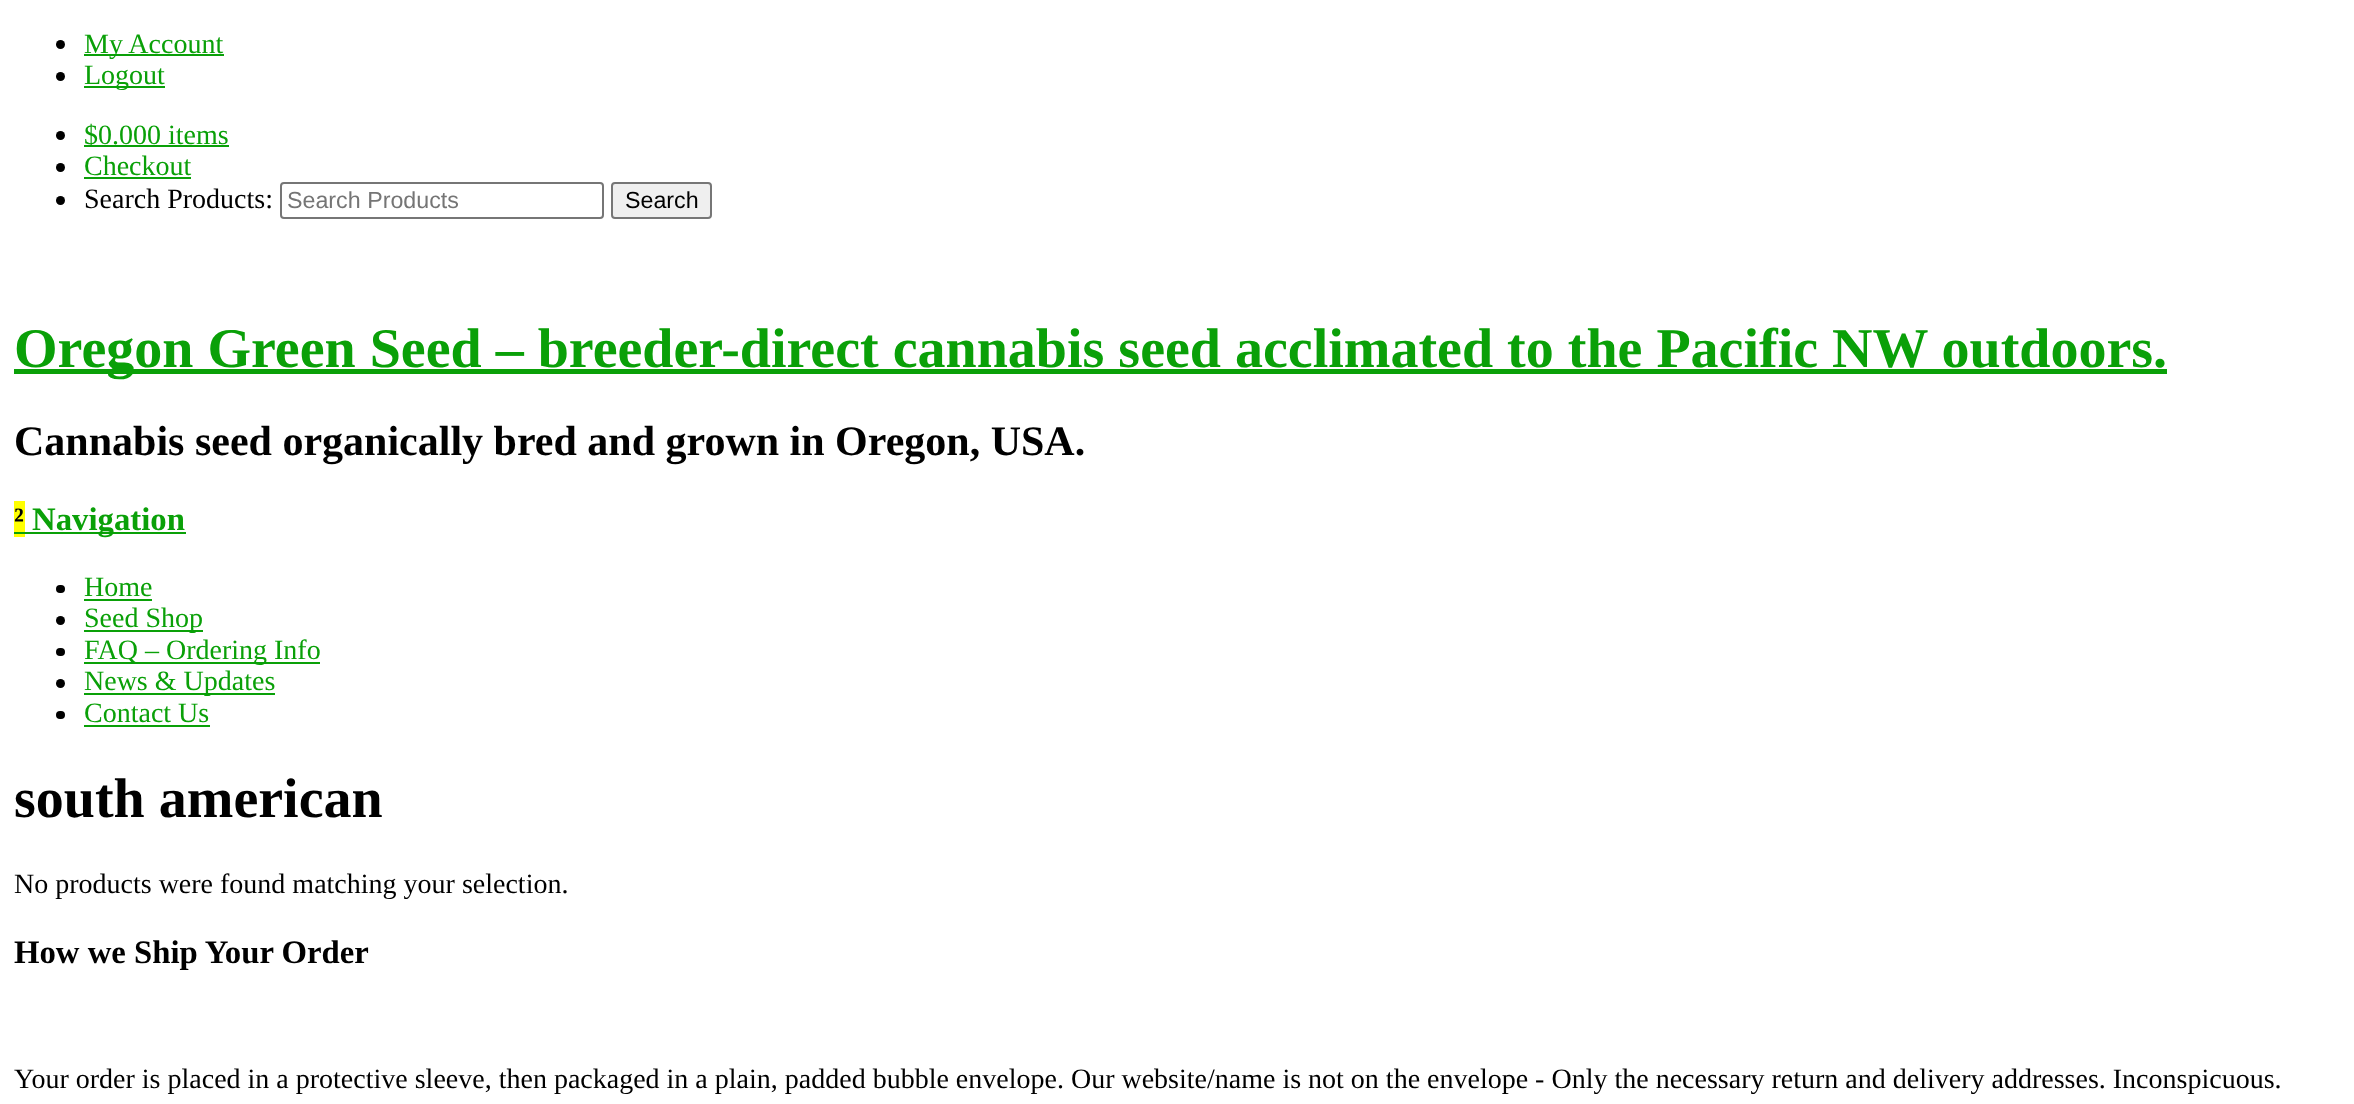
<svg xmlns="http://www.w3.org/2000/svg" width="2354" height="1104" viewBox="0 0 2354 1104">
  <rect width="100%" height="100%" fill="rgb(255,255,255)"/>
  <circle cx="60.5" cy="44.5" r="4.5" fill="rgb(0,0,0)"/>
  <rect x="84" y="54" width="140" height="2" fill="rgb(10,160,8)"/>
  <text x="84" y="53" font-family="Liberation Serif" font-size="28" fill="rgb(10,160,8)">My Account</text>
  <circle cx="60.5" cy="76.5" r="4.5" fill="rgb(0,0,0)"/>
  <rect x="84" y="86" width="81" height="2" fill="rgb(10,160,8)"/>
  <text x="84" y="84" font-family="Liberation Serif" font-size="28" fill="rgb(10,160,8)">Logout</text>
  <circle cx="60.5" cy="135.5" r="4.5" fill="rgb(0,0,0)"/>
  <rect x="84" y="145" width="145" height="2" fill="rgb(10,160,8)"/>
  <text x="84" y="144" font-family="Liberation Serif" font-size="28" fill="rgb(10,160,8)">$0.000 items</text>
  <circle cx="60.5" cy="167.5" r="4.5" fill="rgb(0,0,0)"/>
  <text x="84" y="175" font-family="Liberation Serif" font-size="28" fill="rgb(10,160,8)">Checkout</text>
  <rect x="84" y="177" width="107" height="2" fill="rgb(10,160,8)"/>
  <circle cx="60.5" cy="200.5" r="4.5" fill="rgb(0,0,0)"/>
  <text x="84" y="208" font-family="Liberation Serif" font-size="28" fill="rgb(0,0,0)">Search Products:</text>
  <rect x="281" y="183" width="322" height="35" rx="3" fill="none" stroke="rgb(118,118,118)" stroke-width="2"/>
  <text x="287" y="208" font-family="Liberation Sans" font-size="23.25" fill="rgb(117,117,117)">Search Products</text>
  <rect x="612" y="183" width="99" height="35" rx="3" fill="rgb(239,239,239)" stroke="rgb(118,118,118)" stroke-width="2"/>
  <text x="625" y="208" font-family="Liberation Sans" font-size="23.25" fill="rgb(0,0,0)">Search</text>
  <rect x="14" y="369" width="2153" height="5" fill="rgb(10,160,8)"/>
  <text x="14" y="367" font-family="Liberation Serif" font-size="56" font-weight="bold" fill="rgb(10,160,8)">Oregon Green Seed – breeder-direct cannabis seed acclimated to the Pacific NW outdoors.</text>
  <text x="14" y="455" font-family="Liberation Serif" font-size="42" font-weight="bold" fill="rgb(0,0,0)">Cannabis seed organically bred and grown in Oregon, USA.</text>
  <rect x="14" y="501" width="11" height="36" fill="rgb(255,255,0)"/>
  <text x="14" y="530" font-family="Liberation Serif" font-size="32.75" font-weight="bold" fill="rgb(0,0,0)">²</text>
  <rect x="14" y="532" width="172" height="2" fill="rgb(10,160,8)"/>
  <text x="32" y="530" font-family="Liberation Serif" font-size="32.75" font-weight="bold" fill="rgb(10,160,8)">Navigation</text>
  <rect x="56" y="585" width="9" height="8" rx="4" fill="rgb(0,0,0)"/>
  <text x="84" y="596" font-family="Liberation Serif" font-size="28" fill="rgb(10,160,8)">Home</text>
  <rect x="84" y="599" width="68" height="2" fill="rgb(10,160,8)"/>
  <circle cx="60.5" cy="620.5" r="4.5" fill="rgb(0,0,0)"/>
  <rect x="84" y="630" width="119" height="2" fill="rgb(10,160,8)"/>
  <text x="84" y="627" font-family="Liberation Serif" font-size="28" fill="rgb(10,160,8)">Seed Shop</text>
  <rect x="56" y="648" width="9" height="8" rx="4" fill="rgb(0,0,0)"/>
  <rect x="84" y="662" width="236" height="2" fill="rgb(10,160,8)"/>
  <text x="84" y="659" font-family="Liberation Serif" font-size="28" fill="rgb(10,160,8)">FAQ – Ordering Info</text>
  <circle cx="60.5" cy="683.5" r="4.5" fill="rgb(0,0,0)"/>
  <rect x="84" y="693" width="191" height="2" fill="rgb(10,160,8)"/>
  <text x="84" y="690" font-family="Liberation Serif" font-size="28" fill="rgb(10,160,8)">News &amp; Updates</text>
  <rect x="56" y="711" width="9" height="8" rx="4" fill="rgb(0,0,0)"/>
  <text x="84" y="722" font-family="Liberation Serif" font-size="28" fill="rgb(10,160,8)">Contact Us</text>
  <rect x="84" y="725" width="126" height="2" fill="rgb(10,160,8)"/>
  <text x="14" y="817" font-family="Liberation Serif" font-size="56" font-weight="bold" fill="rgb(0,0,0)">south american</text>
  <text x="14" y="893" font-family="Liberation Serif" font-size="28" fill="rgb(0,0,0)">No products were found matching your selection.</text>
  <text x="14" y="963" font-family="Liberation Serif" font-size="32.75" font-weight="bold" fill="rgb(0,0,0)">How we Ship Your Order</text>
  <text x="14" y="1088" font-family="Liberation Serif" font-size="28" fill="rgb(0,0,0)">Your order is placed in a protective sleeve, then packaged in a plain, padded bubble envelope. Our website/name is not on the envelope - Only the necessary return and delivery addresses. Inconspicuous.</text>
</svg>
